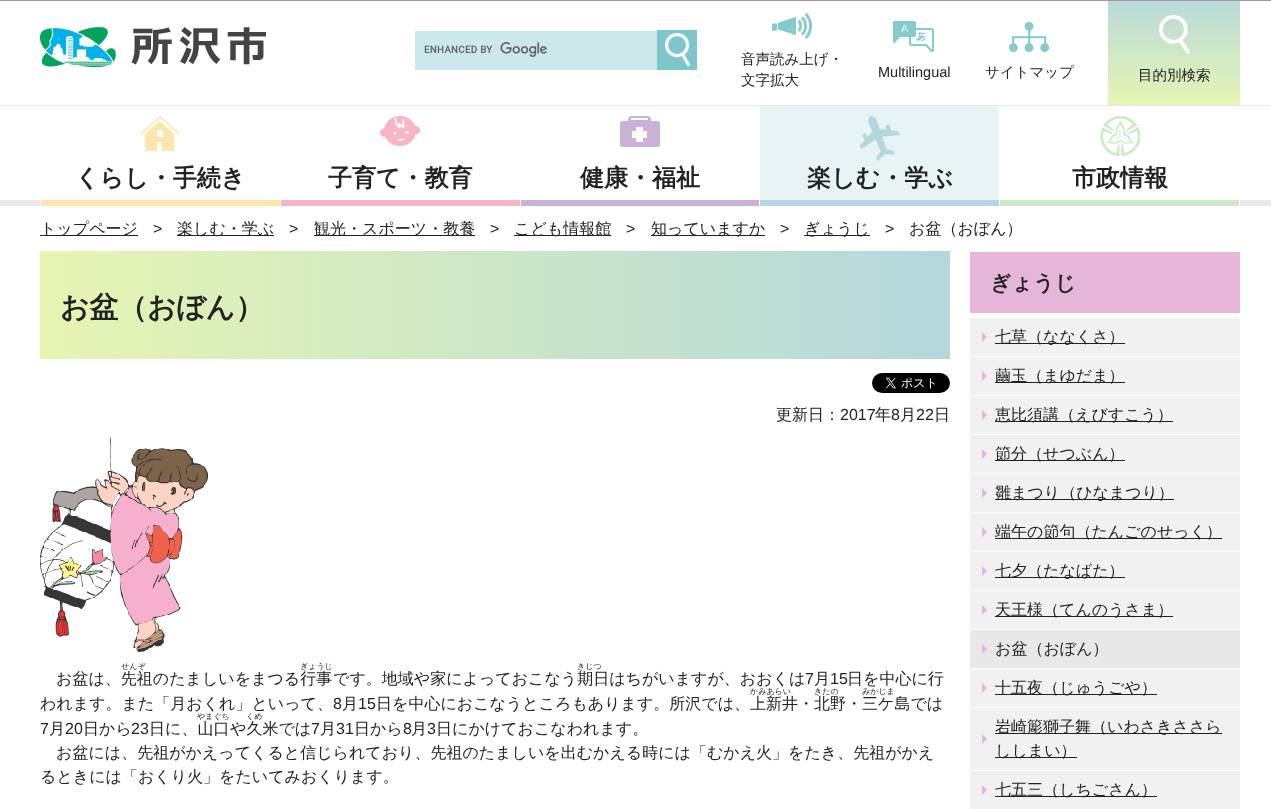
<svg xmlns="http://www.w3.org/2000/svg" width="1271" height="809" viewBox="0 0 1271 809">
  <defs>
    <linearGradient id="g1" gradientUnits="userSpaceOnUse" x1="1174" y1="0" x2="1174" y2="105"><stop offset="0" stop-color="rgb(184,218,217)"/><stop offset="1" stop-color="rgb(230,245,179)"/></linearGradient>
    <linearGradient id="g2" gradientUnits="userSpaceOnUse" x1="40" y1="305" x2="950" y2="305"><stop offset="0" stop-color="rgb(231,245,178)"/><stop offset="1" stop-color="rgb(179,215,221)"/></linearGradient>
  </defs>
  <rect width="100%" height="100%" fill="rgb(255,255,255)"/>
  <rect x="0" y="0" width="1271" height="1" fill="rgb(153,153,153)"/>
  <rect x="0" y="105" width="1271" height="1" fill="rgb(232,232,232)"/>
  <image x="40" y="27" width="226" height="40" href="pic1.png"/>
  <rect x="415" y="31" width="242" height="39" fill="rgb(204,232,235)"/>
  <image x="424" y="42" width="123" height="15" href="pic2.png"/>
  <rect x="657" y="30" width="40" height="40" fill="rgb(127,197,204)"/>
  <image x="665" y="33" width="25" height="34" href="pic3.png"/>
  <image x="772" y="13" width="40" height="26" href="pic4.png"/>
  <g font-family="WenQuanYi Zen Hei" font-size="14.5" font-weight="500" fill="rgb(34,34,34)">
    <text>
      <tspan x="741" y="64">音声読み上げ・</tspan>
      <tspan x="741" y="85">文字拡大</tspan>
    </text>
  </g>
  <image x="893" y="21" width="41" height="31" href="pic5.png"/>
  <text x="878" y="77" font-family="Liberation Sans" font-size="14.5" fill="rgb(34,34,34)">Multilingual</text>
  <image x="1009" y="22" width="40" height="30" href="pic6.png"/>
  <text x="985" y="77" font-family="WenQuanYi Zen Hei" font-size="14.5" font-weight="500" fill="rgb(34,34,34)">サイトマップ</text>
  <rect x="1108" y="1" width="132" height="104" fill="url(#g1)"/>
  <image x="1159" y="15" width="31" height="39" href="pic7.png"/>
  <text x="1138" y="80" font-family="WenQuanYi Zen Hei" font-size="14.5" font-weight="500" fill="rgb(34,34,34)">目的別検索</text>
  <rect x="0" y="200" width="1271" height="6" fill="rgb(232,232,232)"/>
  <rect x="280" y="200" width="1" height="6" fill="rgb(255,255,255)"/>
  <rect x="40" y="200" width="1" height="6" fill="rgb(255,255,255)"/>
  <image x="140" y="116" width="40" height="35" href="pic8.png"/>
  <rect x="41" y="200" width="239" height="6" fill="rgb(254,230,170)"/>
  <text x="75" y="186" font-family="WenQuanYi Zen Hei" font-size="24" font-weight="bold" fill="rgb(34,34,34)">くらし・手続き</text>
  <rect x="520" y="200" width="1" height="6" fill="rgb(255,255,255)"/>
  <image x="380" y="116" width="40" height="30" href="pic9.png"/>
  <rect x="281" y="200" width="239" height="6" fill="rgb(251,180,196)"/>
  <text x="328" y="186" font-family="WenQuanYi Zen Hei" font-size="24" font-weight="bold" fill="rgb(34,34,34)">子育て・教育</text>
  <rect x="759" y="200" width="1" height="6" fill="rgb(255,255,255)"/>
  <image x="620" y="116" width="40" height="31" href="pic10.png"/>
  <rect x="521" y="200" width="238" height="6" fill="rgb(202,178,214)"/>
  <text x="580" y="186" font-family="WenQuanYi Zen Hei" font-size="24" font-weight="bold" fill="rgb(34,34,34)">健康・福祉</text>
  <rect x="999" y="200" width="1" height="6" fill="rgb(255,255,255)"/>
  <rect x="760" y="106" width="239" height="94" fill="rgb(232,243,245)"/>
  <image x="860" y="116" width="40" height="45" href="pic11.png"/>
  <rect x="760" y="200" width="239" height="6" fill="rgb(179,215,221)"/>
  <text x="807" y="186" font-family="WenQuanYi Zen Hei" font-size="24" font-weight="bold" fill="rgb(34,34,34)">楽しむ・学ぶ</text>
  <rect x="1239" y="200" width="1" height="6" fill="rgb(255,255,255)"/>
  <image x="1100" y="116" width="40" height="40" href="pic12.png"/>
  <rect x="1000" y="200" width="239" height="6" fill="rgb(205,235,198)"/>
  <text x="1072" y="186" font-family="WenQuanYi Zen Hei" font-size="24" font-weight="bold" fill="rgb(34,34,34)">市政情報</text>
  <rect x="40" y="235" width="98" height="1" fill="rgb(34,34,34)"/>
  <text x="40" y="234" font-family="WenQuanYi Zen Hei" font-size="16" font-weight="500" fill="rgb(34,34,34)">トップページ</text>
  <text x="153" y="234" font-family="Liberation Sans" font-size="16" fill="rgb(34,34,34)">&gt;</text>
  <rect x="177" y="235" width="97" height="1" fill="rgb(34,34,34)"/>
  <text x="177" y="234" font-family="WenQuanYi Zen Hei" font-size="16" font-weight="500" fill="rgb(34,34,34)">楽しむ・学ぶ</text>
  <text x="289" y="234" font-family="Liberation Sans" font-size="16" fill="rgb(34,34,34)">&gt;</text>
  <rect x="314" y="235" width="161" height="1" fill="rgb(34,34,34)"/>
  <text x="314" y="234" font-family="WenQuanYi Zen Hei" font-size="16" font-weight="500" fill="rgb(34,34,34)">観光・スポーツ・教養</text>
  <text x="490" y="234" font-family="Liberation Sans" font-size="16" fill="rgb(34,34,34)">&gt;</text>
  <rect x="514" y="235" width="97" height="1" fill="rgb(34,34,34)"/>
  <text x="514" y="234" font-family="WenQuanYi Zen Hei" font-size="16" font-weight="500" fill="rgb(34,34,34)">こども情報館</text>
  <text x="626" y="234" font-family="Liberation Sans" font-size="16" fill="rgb(34,34,34)">&gt;</text>
  <rect x="651" y="235" width="114" height="1" fill="rgb(34,34,34)"/>
  <text x="651" y="234" font-family="WenQuanYi Zen Hei" font-size="16" font-weight="500" fill="rgb(34,34,34)">知っていますか</text>
  <text x="780" y="234" font-family="Liberation Sans" font-size="16" fill="rgb(34,34,34)">&gt;</text>
  <rect x="804" y="235" width="66" height="1" fill="rgb(34,34,34)"/>
  <text x="804" y="234" font-family="WenQuanYi Zen Hei" font-size="16" font-weight="500" fill="rgb(34,34,34)">ぎょうじ</text>
  <text x="885" y="234" font-family="Liberation Sans" font-size="16" fill="rgb(34,34,34)">&gt;</text>
  <text x="909" y="234" font-family="WenQuanYi Zen Hei" font-size="16" font-weight="500" fill="rgb(34,34,34)">お盆（おぼん）</text>
  <rect x="40" y="251" width="910" height="108" fill="url(#g2)"/>
  <text x="60" y="317" font-family="WenQuanYi Zen Hei" font-size="28.75" font-weight="bold" fill="rgb(34,34,34)">お盆（おぼん）</text>
  <image x="872" y="373" width="78" height="20" href="pic13.png"/>
  <text x="776" y="420" font-family="WenQuanYi Zen Hei" font-size="16" font-weight="500" fill="rgb(34,34,34)">更新日：</text>
  <text x="840" y="420" font-family="Liberation Sans" font-size="16" fill="rgb(34,34,34)">2017</text>
  <text x="875" y="420" font-family="WenQuanYi Zen Hei" font-size="16" font-weight="500" fill="rgb(34,34,34)">年</text>
  <text x="891" y="420" font-family="Liberation Sans" font-size="16" fill="rgb(34,34,34)">8</text>
  <text x="900" y="420" font-family="WenQuanYi Zen Hei" font-size="16" font-weight="500" fill="rgb(34,34,34)">月</text>
  <text x="916" y="420" font-family="Liberation Sans" font-size="16" fill="rgb(34,34,34)">22</text>
  <text x="934" y="420" font-family="WenQuanYi Zen Hei" font-size="16" font-weight="500" fill="rgb(34,34,34)">日</text>
  <image x="40" y="437" width="168" height="215" href="pic14.png"/>
  <g font-family="WenQuanYi Zen Hei" font-size="8" font-weight="500" fill="rgb(34,34,34)">
    <text x="121" y="669">せんぞ</text>
    <text x="300" y="669">ぎょうじ</text>
    <text x="577" y="669">きじつ</text>
  </g>
  <g font-family="WenQuanYi Zen Hei" font-size="16" font-weight="500" fill="rgb(34,34,34)">
    <text x="56" y="684">お盆は、先祖のたましいをまつる行事</text>
    <text x="333" y="684">です。地域や家によっておこなう期日はちがいますが、おおくは</text>
  </g>
  <text x="805" y="684" font-family="Liberation Sans" font-size="16" fill="rgb(34,34,34)">7</text>
  <text x="814" y="684" font-family="WenQuanYi Zen Hei" font-size="16" font-weight="500" fill="rgb(34,34,34)">月</text>
  <text x="830" y="684" font-family="Liberation Sans" font-size="16" fill="rgb(34,34,34)">15</text>
  <text x="847" y="684" font-family="WenQuanYi Zen Hei" font-size="16" font-weight="500" fill="rgb(34,34,34)">日を中心に行</text>
  <g font-family="WenQuanYi Zen Hei" font-size="8" font-weight="500" fill="rgb(34,34,34)">
    <text x="750" y="694">かみあらい</text>
    <text x="814" y="694">きたの</text>
    <text x="862" y="694">みかじま</text>
  </g>
  <text x="40" y="709" font-family="WenQuanYi Zen Hei" font-size="16" font-weight="500" fill="rgb(34,34,34)">われます。また「月おくれ」といって、</text>
  <text x="333" y="709" font-family="Liberation Sans" font-size="16" fill="rgb(34,34,34)">8</text>
  <text x="342" y="709" font-family="WenQuanYi Zen Hei" font-size="16" font-weight="500" fill="rgb(34,34,34)">月</text>
  <text x="358" y="709" font-family="Liberation Sans" font-size="16" fill="rgb(34,34,34)">15</text>
  <text x="376" y="709" font-family="WenQuanYi Zen Hei" font-size="16" font-weight="500" fill="rgb(34,34,34)">日を中心におこなうところもあります。所沢では、上新井・北野・三ケ島では</text>
  <g font-family="WenQuanYi Zen Hei" font-size="8" font-weight="500" fill="rgb(34,34,34)">
    <text x="197" y="719">やまぐち</text>
    <text x="246" y="719">くめ</text>
  </g>
  <text x="40" y="734" font-family="Liberation Sans" font-size="16" fill="rgb(34,34,34)">7</text>
  <text x="49" y="734" font-family="WenQuanYi Zen Hei" font-size="16" font-weight="500" fill="rgb(34,34,34)">月</text>
  <text x="65" y="734" font-family="Liberation Sans" font-size="16" fill="rgb(34,34,34)">20</text>
  <text x="83" y="734" font-family="WenQuanYi Zen Hei" font-size="16" font-weight="500" fill="rgb(34,34,34)">日から</text>
  <text x="131" y="734" font-family="Liberation Sans" font-size="16" fill="rgb(34,34,34)">23</text>
  <g font-family="WenQuanYi Zen Hei" font-size="16" font-weight="500" fill="rgb(34,34,34)">
    <text x="149" y="734">日に、山口</text>
    <text x="230" y="734">や久米では</text>
  </g>
  <text x="311" y="734" font-family="Liberation Sans" font-size="16" fill="rgb(34,34,34)">7</text>
  <text x="320" y="734" font-family="WenQuanYi Zen Hei" font-size="16" font-weight="500" fill="rgb(34,34,34)">月</text>
  <text x="336" y="734" font-family="Liberation Sans" font-size="16" fill="rgb(34,34,34)">31</text>
  <text x="354" y="734" font-family="WenQuanYi Zen Hei" font-size="16" font-weight="500" fill="rgb(34,34,34)">日から</text>
  <text x="403" y="734" font-family="Liberation Sans" font-size="16" fill="rgb(34,34,34)">8</text>
  <text x="411" y="734" font-family="WenQuanYi Zen Hei" font-size="16" font-weight="500" fill="rgb(34,34,34)">月</text>
  <text x="427" y="734" font-family="Liberation Sans" font-size="16" fill="rgb(34,34,34)">3</text>
  <g font-family="WenQuanYi Zen Hei" font-size="16" font-weight="500" fill="rgb(34,34,34)">
    <text x="436" y="734">日にかけておこなわれます。</text>
    <text x="56" y="758">お盆には、先祖がかえってくると信じられており、先祖のたましいを出むかえる時には「むかえ火」をたき、先祖がかえ</text>
    <text x="40" y="782">るときには「おくり火」をたいてみおくります。</text>
  </g>
  <rect x="970" y="252" width="270" height="61" fill="rgb(230,182,218)"/>
  <text x="990" y="290" font-family="WenQuanYi Zen Hei" font-size="21" font-weight="bold" fill="rgb(34,34,34)">ぎょうじ</text>
  <rect x="970" y="318" width="270" height="38" fill="rgb(241,241,241)"/>
  <image x="982" y="332" width="5" height="10" href="pic15.png"/>
  <rect x="995" y="343" width="130" height="1" fill="rgb(34,34,34)"/>
  <text x="995" y="342" font-family="WenQuanYi Zen Hei" font-size="16" font-weight="500" fill="rgb(34,34,34)">七草（ななくさ）</text>
  <rect x="970" y="357" width="270" height="38" fill="rgb(241,241,241)"/>
  <image x="982" y="371" width="5" height="10" href="pic15.png"/>
  <rect x="995" y="382" width="130" height="1" fill="rgb(34,34,34)"/>
  <text x="995" y="381" font-family="WenQuanYi Zen Hei" font-size="16" font-weight="500" fill="rgb(34,34,34)">繭玉（まゆだま）</text>
  <rect x="970" y="396" width="270" height="38" fill="rgb(241,241,241)"/>
  <image x="982" y="410" width="5" height="10" href="pic15.png"/>
  <rect x="995" y="421" width="178" height="1" fill="rgb(34,34,34)"/>
  <text x="995" y="420" font-family="WenQuanYi Zen Hei" font-size="16" font-weight="500" fill="rgb(34,34,34)">恵比須講（えびすこう）</text>
  <rect x="970" y="435" width="270" height="38" fill="rgb(241,241,241)"/>
  <image x="982" y="449" width="5" height="10" href="pic15.png"/>
  <rect x="995" y="460" width="130" height="1" fill="rgb(34,34,34)"/>
  <text x="995" y="459" font-family="WenQuanYi Zen Hei" font-size="16" font-weight="500" fill="rgb(34,34,34)">節分（せつぶん）</text>
  <rect x="970" y="474" width="270" height="38" fill="rgb(241,241,241)"/>
  <image x="982" y="488" width="5" height="10" href="pic15.png"/>
  <rect x="995" y="499" width="179" height="1" fill="rgb(34,34,34)"/>
  <text x="995" y="498" font-family="WenQuanYi Zen Hei" font-size="16" font-weight="500" fill="rgb(34,34,34)">雛まつり（ひなまつり）</text>
  <rect x="970" y="513" width="270" height="38" fill="rgb(241,241,241)"/>
  <image x="982" y="527" width="5" height="10" href="pic15.png"/>
  <rect x="995" y="538" width="227" height="1" fill="rgb(34,34,34)"/>
  <text x="995" y="537" font-family="WenQuanYi Zen Hei" font-size="16" font-weight="500" fill="rgb(34,34,34)">端午の節句（たんごのせっく）</text>
  <rect x="970" y="552" width="270" height="38" fill="rgb(241,241,241)"/>
  <image x="982" y="566" width="5" height="10" href="pic15.png"/>
  <rect x="995" y="577" width="130" height="1" fill="rgb(34,34,34)"/>
  <text x="995" y="576" font-family="WenQuanYi Zen Hei" font-size="16" font-weight="500" fill="rgb(34,34,34)">七夕（たなばた）</text>
  <rect x="970" y="591" width="270" height="38" fill="rgb(241,241,241)"/>
  <image x="982" y="605" width="5" height="10" href="pic15.png"/>
  <rect x="995" y="616" width="178" height="1" fill="rgb(34,34,34)"/>
  <text x="995" y="615" font-family="WenQuanYi Zen Hei" font-size="16" font-weight="500" fill="rgb(34,34,34)">天王様（てんのうさま）</text>
  <rect x="970" y="630" width="270" height="38" fill="rgb(232,232,232)"/>
  <image x="982" y="644" width="5" height="10" href="pic16.png"/>
  <text x="995" y="654" font-family="WenQuanYi Zen Hei" font-size="16" font-weight="500" fill="rgb(34,34,34)">お盆（おぼん）</text>
  <rect x="970" y="669" width="270" height="38" fill="rgb(241,241,241)"/>
  <image x="982" y="683" width="5" height="10" href="pic15.png"/>
  <rect x="995" y="694" width="162" height="1" fill="rgb(34,34,34)"/>
  <text x="995" y="693" font-family="WenQuanYi Zen Hei" font-size="16" font-weight="500" fill="rgb(34,34,34)">十五夜（じゅうごや）</text>
  <rect x="970" y="708" width="270" height="62" fill="rgb(241,241,241)"/>
  <image x="982" y="734" width="5" height="10" href="pic15.png"/>
  <rect x="995" y="733" width="227" height="1" fill="rgb(34,34,34)"/>
  <text x="995" y="732" font-family="WenQuanYi Zen Hei" font-size="16" font-weight="500" fill="rgb(34,34,34)">岩崎簓獅子舞（いわさきささら</text>
  <rect x="995" y="757" width="82" height="1" fill="rgb(34,34,34)"/>
  <text x="995" y="756" font-family="WenQuanYi Zen Hei" font-size="16" font-weight="500" fill="rgb(34,34,34)">ししまい）</text>
  <rect x="970" y="771" width="270" height="38" fill="rgb(241,241,241)"/>
  <image x="982" y="785" width="5" height="10" href="pic15.png"/>
  <rect x="995" y="796" width="162" height="1" fill="rgb(34,34,34)"/>
  <text x="995" y="795" font-family="WenQuanYi Zen Hei" font-size="16" font-weight="500" fill="rgb(34,34,34)">七五三（しちごさん）</text>
</svg>
